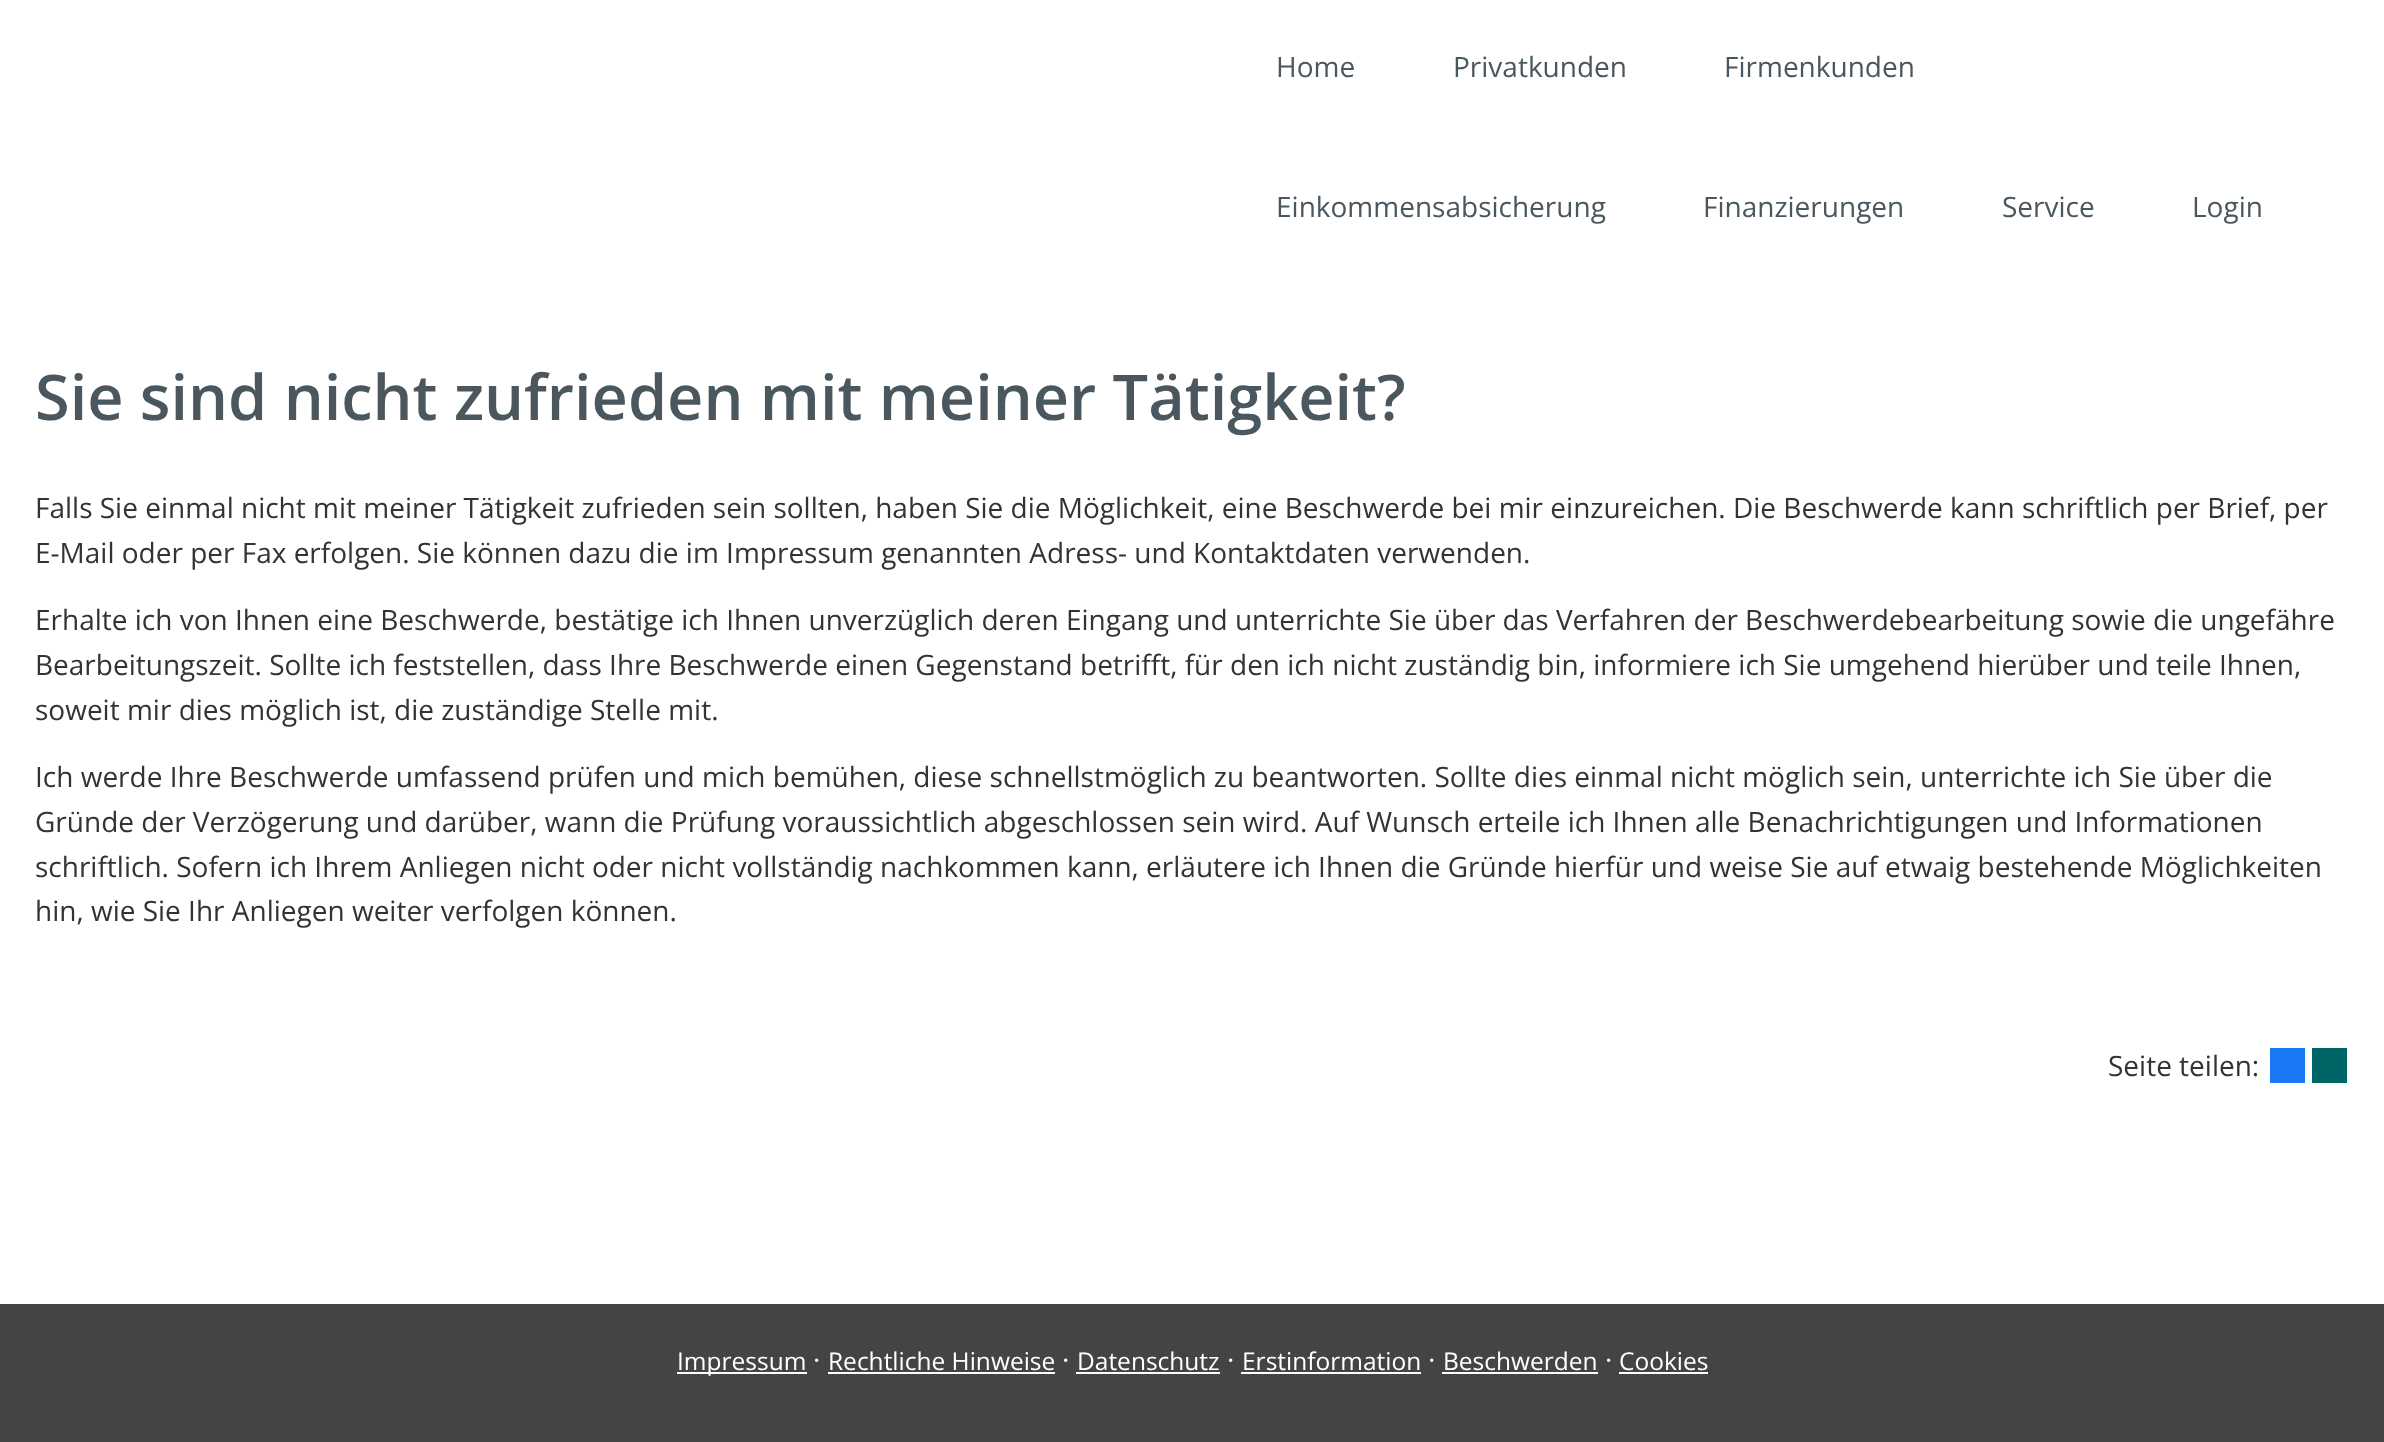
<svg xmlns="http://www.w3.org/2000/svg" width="2384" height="1442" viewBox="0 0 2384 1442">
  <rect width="100%" height="100%" fill="rgb(255,255,255)"/>
  <g font-family="Open Sans" font-size="28" fill="rgb(74,87,95)">
    <text x="1276" y="77">Home</text>
    <text x="1453" y="77">Privatkunden</text>
    <text x="1724" y="77">Firmenkunden</text>
    <text x="1276" y="217">Einkommensabsicherung</text>
    <text x="1703" y="217">Finanzierungen</text>
    <text x="2002" y="217">Service</text>
    <text x="2192" y="217">Login</text>
  </g>
  <text x="35" y="420" font-family="Open Sans" font-size="63" font-weight="600" fill="rgb(74,87,95)">Sie sind nicht zufrieden mit meiner Tätigkeit?</text>
  <g font-family="Open Sans" font-size="28" fill="rgb(51,51,51)">
    <text>
      <tspan x="35" y="518">Falls Sie einmal nicht mit meiner Tätigkeit zufrieden sein sollten, haben Sie die Möglichkeit, eine Beschwerde bei mir einzureichen. Die Beschwerde kann schriftlich per Brief, per</tspan>
      <tspan x="35" y="563">E-Mail oder per Fax erfolgen. Sie können dazu die im Impressum genannten Adress- und Kontaktdaten verwenden.</tspan>
    </text>
    <text>
      <tspan x="35" y="630">Erhalte ich von Ihnen eine Beschwerde, bestätige ich Ihnen unverzüglich deren Eingang und unterrichte Sie über das Verfahren der Beschwerdebearbeitung sowie die ungefähre</tspan>
      <tspan x="35" y="675">Bearbeitungszeit. Sollte ich feststellen, dass Ihre Beschwerde einen Gegenstand betrifft, für den ich nicht zuständig bin, informiere ich Sie umgehend hierüber und teile Ihnen,</tspan>
      <tspan x="35" y="720">soweit mir dies möglich ist, die zuständige Stelle mit.</tspan>
    </text>
    <text>
      <tspan x="35" y="787">Ich werde Ihre Beschwerde umfassend prüfen und mich bemühen, diese schnellstmöglich zu beantworten. Sollte dies einmal nicht möglich sein, unterrichte ich Sie über die</tspan>
      <tspan x="35" y="832">Gründe der Verzögerung und darüber, wann die Prüfung voraussichtlich abgeschlossen sein wird. Auf Wunsch erteile ich Ihnen alle Benachrichtigungen und Informationen</tspan>
      <tspan x="35" y="877">schriftlich. Sofern ich Ihrem Anliegen nicht oder nicht vollständig nachkommen kann, erläutere ich Ihnen die Gründe hierfür und weise Sie auf etwaig bestehende Möglichkeiten</tspan>
      <tspan x="35" y="921">hin, wie Sie Ihr Anliegen weiter verfolgen können.</tspan>
    </text>
    <text x="2108" y="1076">Seite teilen:</text>
  </g>
  <rect x="2270" y="1048" width="35" height="35" fill="rgb(25,120,243)"/>
  <rect x="2312" y="1048" width="35" height="35" fill="rgb(0,101,103)"/>
  <rect x="0" y="1304" width="2384" height="138" fill="rgb(68,68,68)"/>
  <rect x="677" y="1372" width="130" height="2" fill="rgb(255,255,255)"/>
  <text x="677" y="1370" font-family="Open Sans" font-size="24.5" fill="rgb(255,255,255)">Impressum</text>
  <text x="813" y="1370" font-family="Open Sans" font-size="28" fill="rgb(255,255,255)">·</text>
  <text x="828" y="1370" font-family="Open Sans" font-size="24.5" fill="rgb(255,255,255)">Rechtliche Hinweise</text>
  <rect x="828" y="1372" width="227" height="2" fill="rgb(255,255,255)"/>
  <text x="1062" y="1370" font-family="Open Sans" font-size="28" fill="rgb(255,255,255)">·</text>
  <text x="1077" y="1370" font-family="Open Sans" font-size="24.5" fill="rgb(255,255,255)">Datenschutz</text>
  <rect x="1076" y="1372" width="144" height="2" fill="rgb(255,255,255)"/>
  <text x="1227" y="1370" font-family="Open Sans" font-size="28" fill="rgb(255,255,255)">·</text>
  <text x="1242" y="1370" font-family="Open Sans" font-size="24.5" fill="rgb(255,255,255)">Erstinformation</text>
  <rect x="1241" y="1372" width="180" height="2" fill="rgb(255,255,255)"/>
  <text x="1428" y="1370" font-family="Open Sans" font-size="28" fill="rgb(255,255,255)">·</text>
  <text x="1443" y="1370" font-family="Open Sans" font-size="24.5" fill="rgb(255,255,255)">Beschwerden</text>
  <rect x="1442" y="1372" width="156" height="2" fill="rgb(255,255,255)"/>
  <text x="1605" y="1370" font-family="Open Sans" font-size="28" fill="rgb(255,255,255)">·</text>
  <text x="1619" y="1370" font-family="Open Sans" font-size="24.5" fill="rgb(255,255,255)">Cookies</text>
  <rect x="1619" y="1372" width="89" height="2" fill="rgb(255,255,255)"/>
</svg>
